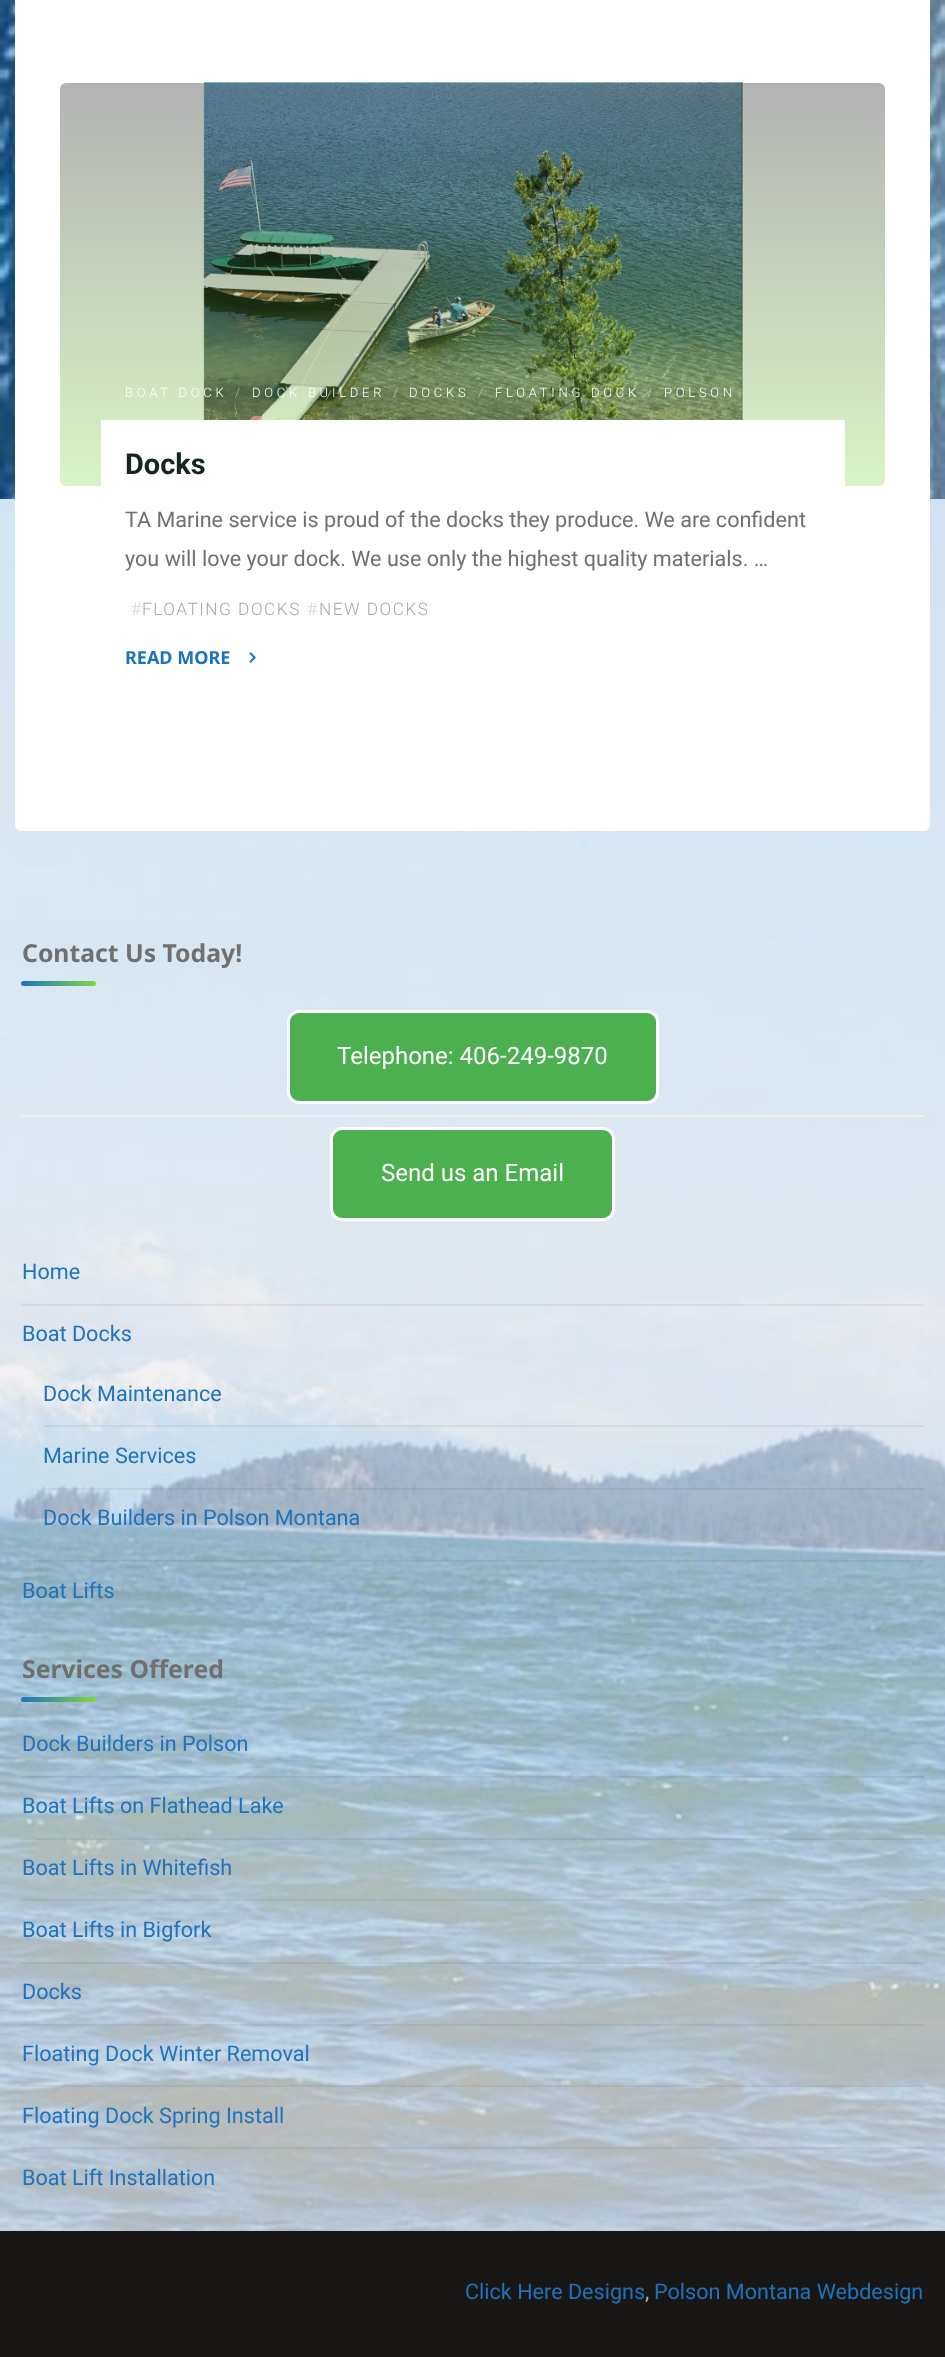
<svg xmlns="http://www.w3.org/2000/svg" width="945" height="2357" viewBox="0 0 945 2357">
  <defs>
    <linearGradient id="g1" gradientUnits="userSpaceOnUse" x1="473" y1="82" x2="473" y2="486"><stop offset="0" stop-color="rgb(0,0,0)" stop-opacity="0.3"/><stop offset="1" stop-color="rgb(129,215,66)" stop-opacity="0.3"/></linearGradient>
    <linearGradient id="g2" gradientUnits="userSpaceOnUse" x1="21" y1="983" x2="96" y2="983"><stop offset="0" stop-color="rgb(30,115,190)"/><stop offset="1" stop-color="rgb(129,215,66)"/></linearGradient>
    <linearGradient id="g3" gradientUnits="userSpaceOnUse" x1="21" y1="1699" x2="96" y2="1699"><stop offset="0" stop-color="rgb(30,115,190)"/><stop offset="1" stop-color="rgb(129,215,66)"/></linearGradient>
  </defs>
  <rect width="100%" height="100%" fill="rgb(255,255,255)"/>
  <image x="0" y="499" width="945" height="1732" href="pic1.png"/>
  <image x="0" y="0" width="945" height="499" href="pic2.png"/>
  <rect x="15" y="-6" width="915" height="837" rx="6" fill="rgb(255,255,255)"/>
  <image x="203" y="82" width="540" height="338" href="pic3.png"/>
  <rect x="60" y="83" width="825" height="403" rx="6" fill="url(#g1)"/>
  <text x="125" y="397" font-family="Roboto" font-size="13" font-weight="300" letter-spacing="3.75" fill="rgb(255,255,255)">BOAT DOCK</text>
  <text x="235" y="397" font-family="Roboto" font-size="13" font-weight="300" letter-spacing="3.75" fill="rgb(168,179,163)">/</text>
  <text x="252" y="397" font-family="Roboto" font-size="13" font-weight="300" letter-spacing="3.75" fill="rgb(255,255,255)">DOCK BUILDER</text>
  <text x="393" y="397" font-family="Roboto" font-size="13" font-weight="300" letter-spacing="3.75" fill="rgb(182,193,171)">/</text>
  <text x="409" y="397" font-family="Roboto" font-size="13" font-weight="300" letter-spacing="3.75" fill="rgb(255,255,255)">DOCKS</text>
  <text x="478" y="397" font-family="Roboto" font-size="13" font-weight="300" letter-spacing="3.75" fill="rgb(182,193,171)">/</text>
  <text x="495" y="397" font-family="Roboto" font-size="13" font-weight="300" letter-spacing="3.75" fill="rgb(255,255,255)">FLOATING DOCK</text>
  <text x="647" y="397" font-family="Roboto" font-size="13" font-weight="300" letter-spacing="3.75" fill="rgb(190,201,178)">/</text>
  <text x="664" y="397" font-family="Roboto" font-size="13" font-weight="300" letter-spacing="3.75" fill="rgb(255,255,255)">POLSON</text>
  <rect x="101" y="420" width="744" height="66" fill="rgb(255,255,255)"/>
  <text x="125" y="474" font-family="Roboto" font-size="29" font-weight="bold" fill="rgb(22,37,33)">Docks</text>
  <g font-family="Roboto" font-size="21.6" fill="rgb(112,112,112)">
    <text>
      <tspan x="125" y="527">TA Marine service is proud of the docks they produce. We are confident</tspan>
      <tspan x="125" y="566">you will love your dock. We use only the highest quality materials. …</tspan>
    </text>
  </g>
  <text x="131" y="615" font-family="Roboto" font-size="17.25" font-weight="300" letter-spacing="1.5" fill="rgb(211,211,211)">#</text>
  <text x="142" y="615" font-family="Roboto" font-size="17.25" font-weight="300" letter-spacing="1.5" fill="rgb(167,167,167)">FLOATING DOCKS</text>
  <text x="307" y="615" font-family="Roboto" font-size="17.25" font-weight="300" letter-spacing="1.5" fill="rgb(211,211,211)">#</text>
  <text x="319" y="615" font-family="Roboto" font-size="17.25" font-weight="300" letter-spacing="1.5" fill="rgb(167,167,167)">NEW DOCKS</text>
  <text x="125" y="664" font-family="Noto Sans" font-size="18" font-weight="bold" fill="rgb(30,115,190)">READ MORE</text>
  <image x="249" y="652" width="7" height="11" href="pic4.png"/>
  <text x="22" y="962" font-family="Noto Sans" font-size="24.75" font-weight="bold" fill="rgb(112,112,112)">Contact Us Today!</text>
  <rect x="21" y="981" width="75" height="5" rx="2.5" fill="url(#g2)"/>
  <rect x="288.5" y="1011.5" width="369" height="91" rx="10.5" fill="rgb(76,175,80)" stroke="rgb(255,255,255)" stroke-width="3"/>
  <text x="337" y="1064" font-family="Roboto" font-size="24" fill="rgb(255,255,255)">Telephone: 406-249-9870</text>
  <rect x="21" y="1115" width="903" height="2" fill="rgb(240,240,240)"/>
  <rect x="331.5" y="1128.5" width="282" height="91" rx="10.5" fill="rgb(76,175,80)" stroke="rgb(255,255,255)" stroke-width="3"/>
  <text x="381" y="1181" font-family="Roboto" font-size="24" fill="rgb(255,255,255)">Send us an Email</text>
  <rect x="21" y="1304" width="903" height="2" fill="rgba(0,0,0,0.05)"/>
  <text x="22" y="1279" font-family="Roboto" font-size="21.6" fill="rgb(30,115,190)">Home</text>
  <rect x="21" y="1560" width="903" height="2" fill="rgba(0,0,0,0.05)"/>
  <text x="22" y="1341" font-family="Roboto" font-size="21.6" fill="rgb(30,115,190)">Boat Docks</text>
  <rect x="44" y="1425" width="880" height="2" fill="rgba(0,0,0,0.05)"/>
  <text x="43" y="1401" font-family="Roboto" font-size="21.6" fill="rgb(30,115,190)">Dock Maintenance</text>
  <rect x="44" y="1488" width="880" height="2" fill="rgba(0,0,0,0.05)"/>
  <g font-family="Roboto" font-size="21.6" fill="rgb(30,115,190)">
    <text x="43" y="1463">Marine Services</text>
    <text x="43" y="1525">Dock Builders in Polson Montana</text>
    <text x="22" y="1598">Boat Lifts</text>
  </g>
  <text x="22" y="1678" font-family="Noto Sans" font-size="24.75" font-weight="bold" fill="rgb(112,112,112)">Services Offered</text>
  <rect x="21" y="1697" width="75" height="5" rx="2.5" fill="url(#g3)"/>
  <rect x="21" y="1776" width="903" height="2" fill="rgba(0,0,0,0.05)"/>
  <text x="22" y="1751" font-family="Roboto" font-size="21.6" fill="rgb(30,115,190)">Dock Builders in Polson</text>
  <rect x="21" y="1838" width="903" height="2" fill="rgba(0,0,0,0.05)"/>
  <text x="22" y="1813" font-family="Roboto" font-size="21.6" fill="rgb(30,115,190)">Boat Lifts on Flathead Lake</text>
  <rect x="21" y="1899" width="903" height="2" fill="rgba(0,0,0,0.05)"/>
  <text x="22" y="1875" font-family="Roboto" font-size="21.6" fill="rgb(30,115,190)">Boat Lifts in Whitefish</text>
  <rect x="21" y="1962" width="903" height="2" fill="rgba(0,0,0,0.05)"/>
  <text x="22" y="1937" font-family="Roboto" font-size="21.6" fill="rgb(30,115,190)">Boat Lifts in Bigfork</text>
  <rect x="21" y="2024" width="903" height="2" fill="rgba(0,0,0,0.05)"/>
  <text x="22" y="1999" font-family="Roboto" font-size="21.6" fill="rgb(30,115,190)">Docks</text>
  <rect x="21" y="2085" width="903" height="2" fill="rgba(0,0,0,0.05)"/>
  <text x="22" y="2061" font-family="Roboto" font-size="21.6" fill="rgb(30,115,190)">Floating Dock Winter Removal</text>
  <rect x="21" y="2147" width="903" height="2" fill="rgba(0,0,0,0.05)"/>
  <g font-family="Roboto" font-size="21.6" fill="rgb(30,115,190)">
    <text x="22" y="2123">Floating Dock Spring Install</text>
    <text x="22" y="2185">Boat Lift Installation</text>
  </g>
  <rect x="0" y="2231" width="945" height="126" fill="rgb(25,23,22)"/>
  <text x="465" y="2299" font-family="Roboto" font-size="21.6" fill="rgb(30,115,190)">Click Here Designs</text>
  <text x="645" y="2299" font-family="Roboto" font-size="21.6" fill="rgb(175,175,175)">,</text>
  <text x="654" y="2299" font-family="Roboto" font-size="21.6" fill="rgb(30,115,190)">Polson Montana Webdesign</text>
</svg>
